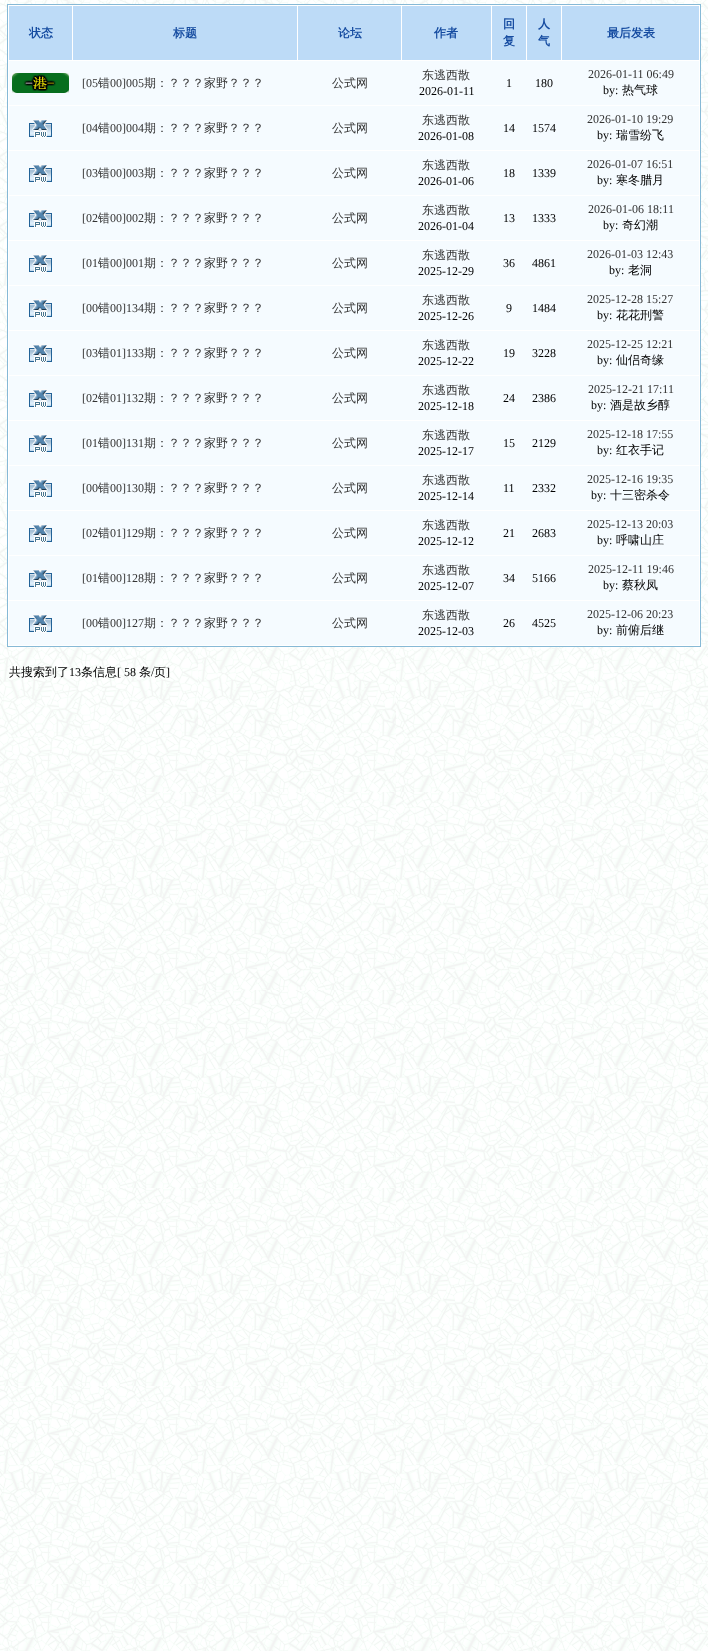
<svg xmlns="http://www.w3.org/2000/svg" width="708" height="1651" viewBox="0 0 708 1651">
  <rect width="100%" height="100%" fill="rgb(255,255,255)"/>
  <image x="0" y="0" width="708" height="1651" href="pic1.png"/>
  <rect x="7.5" y="4.5" width="693" height="642" fill="rgb(255,255,255)" stroke="rgb(134,185,214)"/>
  <rect x="9" y="6" width="63" height="54" fill="rgb(189,219,247)"/>
  <text x="29" y="37" font-family="WenQuanYi Zen Hei" font-size="12" font-weight="bold" fill="rgb(21,75,160)">状态</text>
  <rect x="73" y="6" width="224" height="54" fill="rgb(189,219,247)"/>
  <text x="173" y="37" font-family="WenQuanYi Zen Hei" font-size="12" font-weight="bold" fill="rgb(21,75,160)">标题</text>
  <rect x="298" y="6" width="103" height="54" fill="rgb(189,219,247)"/>
  <text x="338" y="37" font-family="WenQuanYi Zen Hei" font-size="12" font-weight="bold" fill="rgb(21,75,160)">论坛</text>
  <rect x="402" y="6" width="89" height="54" fill="rgb(189,219,247)"/>
  <text x="434" y="37" font-family="WenQuanYi Zen Hei" font-size="12" font-weight="bold" fill="rgb(21,75,160)">作者</text>
  <rect x="492" y="6" width="34" height="54" fill="rgb(189,219,247)"/>
  <g font-family="WenQuanYi Zen Hei" font-size="12" font-weight="bold" fill="rgb(21,75,160)">
    <text>
      <tspan x="503" y="28">回</tspan>
      <tspan x="503" y="45">复</tspan>
    </text>
  </g>
  <rect x="527" y="6" width="34" height="54" fill="rgb(189,219,247)"/>
  <g font-family="WenQuanYi Zen Hei" font-size="12" font-weight="bold" fill="rgb(21,75,160)">
    <text>
      <tspan x="538" y="28">人</tspan>
      <tspan x="538" y="45">气</tspan>
    </text>
  </g>
  <rect x="562" y="6" width="137" height="54" fill="rgb(189,219,247)"/>
  <text x="607" y="37" font-family="WenQuanYi Zen Hei" font-size="12" font-weight="bold" fill="rgb(21,75,160)">最后发表</text>
  <rect x="9" y="61" width="690" height="44" fill="rgb(245,251,255)"/>
  <image x="12" y="73" width="57" height="20" href="pic2.png"/>
  <text x="82" y="87" font-family="Liberation Serif" font-size="12" fill="rgb(51,51,51)">[05</text>
  <text x="98" y="87" font-family="WenQuanYi Zen Hei" font-size="12" font-weight="500" fill="rgb(51,51,51)">错</text>
  <text x="110" y="87" font-family="Liberation Serif" font-size="12" fill="rgb(51,51,51)">00]005</text>
  <g font-family="WenQuanYi Zen Hei" font-size="12" font-weight="500" fill="rgb(51,51,51)">
    <text x="144" y="87">期：？？？家野？？？</text>
    <text x="332" y="87">公式网</text>
    <text x="422" y="79">东逃西散</text>
  </g>
  <g font-family="Liberation Serif" font-size="12" fill="rgb(0,0,0)">
    <text x="419" y="95">2026-01-11</text>
    <text x="506" y="87">1</text>
    <text x="535" y="87">180</text>
  </g>
  <text x="588" y="78" font-family="Liberation Serif" font-size="12" fill="rgb(51,51,51)">2026-01-11 06:49</text>
  <text x="603" y="94" font-family="Liberation Serif" font-size="12" fill="rgb(0,0,0)">by:</text>
  <text x="622" y="94" font-family="WenQuanYi Zen Hei" font-size="12" font-weight="500" fill="rgb(0,0,0)">热气球</text>
  <rect x="9" y="106" width="690" height="44" fill="rgb(245,251,255)"/>
  <image x="29" y="119" width="23" height="19" href="pic3.png"/>
  <text x="82" y="132" font-family="Liberation Serif" font-size="12" fill="rgb(51,51,51)">[04</text>
  <text x="98" y="132" font-family="WenQuanYi Zen Hei" font-size="12" font-weight="500" fill="rgb(51,51,51)">错</text>
  <text x="110" y="132" font-family="Liberation Serif" font-size="12" fill="rgb(51,51,51)">00]004</text>
  <g font-family="WenQuanYi Zen Hei" font-size="12" font-weight="500" fill="rgb(51,51,51)">
    <text x="144" y="132">期：？？？家野？？？</text>
    <text x="332" y="132">公式网</text>
    <text x="422" y="124">东逃西散</text>
  </g>
  <g font-family="Liberation Serif" font-size="12" fill="rgb(0,0,0)">
    <text x="418" y="140">2026-01-08</text>
    <text x="503" y="132">14</text>
    <text x="532" y="132">1574</text>
  </g>
  <text x="587" y="123" font-family="Liberation Serif" font-size="12" fill="rgb(51,51,51)">2026-01-10 19:29</text>
  <text x="597" y="139" font-family="Liberation Serif" font-size="12" fill="rgb(0,0,0)">by:</text>
  <text x="616" y="139" font-family="WenQuanYi Zen Hei" font-size="12" font-weight="500" fill="rgb(0,0,0)">瑞雪纷飞</text>
  <rect x="9" y="151" width="690" height="44" fill="rgb(245,251,255)"/>
  <image x="29" y="164" width="23" height="19" href="pic3.png"/>
  <text x="82" y="177" font-family="Liberation Serif" font-size="12" fill="rgb(51,51,51)">[03</text>
  <text x="98" y="177" font-family="WenQuanYi Zen Hei" font-size="12" font-weight="500" fill="rgb(51,51,51)">错</text>
  <text x="110" y="177" font-family="Liberation Serif" font-size="12" fill="rgb(51,51,51)">00]003</text>
  <g font-family="WenQuanYi Zen Hei" font-size="12" font-weight="500" fill="rgb(51,51,51)">
    <text x="144" y="177">期：？？？家野？？？</text>
    <text x="332" y="177">公式网</text>
    <text x="422" y="169">东逃西散</text>
  </g>
  <g font-family="Liberation Serif" font-size="12" fill="rgb(0,0,0)">
    <text x="418" y="185">2026-01-06</text>
    <text x="503" y="177">18</text>
    <text x="532" y="177">1339</text>
  </g>
  <text x="587" y="168" font-family="Liberation Serif" font-size="12" fill="rgb(51,51,51)">2026-01-07 16:51</text>
  <text x="597" y="184" font-family="Liberation Serif" font-size="12" fill="rgb(0,0,0)">by:</text>
  <text x="616" y="184" font-family="WenQuanYi Zen Hei" font-size="12" font-weight="500" fill="rgb(0,0,0)">寒冬腊月</text>
  <rect x="9" y="196" width="690" height="44" fill="rgb(245,251,255)"/>
  <image x="29" y="209" width="23" height="19" href="pic3.png"/>
  <text x="82" y="222" font-family="Liberation Serif" font-size="12" fill="rgb(51,51,51)">[02</text>
  <text x="98" y="222" font-family="WenQuanYi Zen Hei" font-size="12" font-weight="500" fill="rgb(51,51,51)">错</text>
  <text x="110" y="222" font-family="Liberation Serif" font-size="12" fill="rgb(51,51,51)">00]002</text>
  <g font-family="WenQuanYi Zen Hei" font-size="12" font-weight="500" fill="rgb(51,51,51)">
    <text x="144" y="222">期：？？？家野？？？</text>
    <text x="332" y="222">公式网</text>
    <text x="422" y="214">东逃西散</text>
  </g>
  <g font-family="Liberation Serif" font-size="12" fill="rgb(0,0,0)">
    <text x="418" y="230">2026-01-04</text>
    <text x="503" y="222">13</text>
    <text x="532" y="222">1333</text>
  </g>
  <text x="588" y="213" font-family="Liberation Serif" font-size="12" fill="rgb(51,51,51)">2026-01-06 18:11</text>
  <text x="603" y="229" font-family="Liberation Serif" font-size="12" fill="rgb(0,0,0)">by:</text>
  <text x="622" y="229" font-family="WenQuanYi Zen Hei" font-size="12" font-weight="500" fill="rgb(0,0,0)">奇幻潮</text>
  <rect x="9" y="241" width="690" height="44" fill="rgb(245,251,255)"/>
  <image x="29" y="254" width="23" height="19" href="pic3.png"/>
  <text x="82" y="267" font-family="Liberation Serif" font-size="12" fill="rgb(51,51,51)">[01</text>
  <text x="98" y="267" font-family="WenQuanYi Zen Hei" font-size="12" font-weight="500" fill="rgb(51,51,51)">错</text>
  <text x="110" y="267" font-family="Liberation Serif" font-size="12" fill="rgb(51,51,51)">00]001</text>
  <g font-family="WenQuanYi Zen Hei" font-size="12" font-weight="500" fill="rgb(51,51,51)">
    <text x="144" y="267">期：？？？家野？？？</text>
    <text x="332" y="267">公式网</text>
    <text x="422" y="259">东逃西散</text>
  </g>
  <g font-family="Liberation Serif" font-size="12" fill="rgb(0,0,0)">
    <text x="418" y="275">2025-12-29</text>
    <text x="503" y="267">36</text>
    <text x="532" y="267">4861</text>
  </g>
  <text x="587" y="258" font-family="Liberation Serif" font-size="12" fill="rgb(51,51,51)">2026-01-03 12:43</text>
  <text x="609" y="274" font-family="Liberation Serif" font-size="12" fill="rgb(0,0,0)">by:</text>
  <text x="628" y="274" font-family="WenQuanYi Zen Hei" font-size="12" font-weight="500" fill="rgb(0,0,0)">老洞</text>
  <rect x="9" y="286" width="690" height="44" fill="rgb(245,251,255)"/>
  <image x="29" y="299" width="23" height="19" href="pic3.png"/>
  <text x="82" y="312" font-family="Liberation Serif" font-size="12" fill="rgb(51,51,51)">[00</text>
  <text x="98" y="312" font-family="WenQuanYi Zen Hei" font-size="12" font-weight="500" fill="rgb(51,51,51)">错</text>
  <text x="110" y="312" font-family="Liberation Serif" font-size="12" fill="rgb(51,51,51)">00]134</text>
  <g font-family="WenQuanYi Zen Hei" font-size="12" font-weight="500" fill="rgb(51,51,51)">
    <text x="144" y="312">期：？？？家野？？？</text>
    <text x="332" y="312">公式网</text>
    <text x="422" y="304">东逃西散</text>
  </g>
  <g font-family="Liberation Serif" font-size="12" fill="rgb(0,0,0)">
    <text x="418" y="320">2025-12-26</text>
    <text x="506" y="312">9</text>
    <text x="532" y="312">1484</text>
  </g>
  <text x="587" y="303" font-family="Liberation Serif" font-size="12" fill="rgb(51,51,51)">2025-12-28 15:27</text>
  <text x="597" y="319" font-family="Liberation Serif" font-size="12" fill="rgb(0,0,0)">by:</text>
  <text x="616" y="319" font-family="WenQuanYi Zen Hei" font-size="12" font-weight="500" fill="rgb(0,0,0)">花花刑警</text>
  <rect x="9" y="331" width="690" height="44" fill="rgb(245,251,255)"/>
  <image x="29" y="344" width="23" height="19" href="pic3.png"/>
  <text x="82" y="357" font-family="Liberation Serif" font-size="12" fill="rgb(51,51,51)">[03</text>
  <text x="98" y="357" font-family="WenQuanYi Zen Hei" font-size="12" font-weight="500" fill="rgb(51,51,51)">错</text>
  <text x="110" y="357" font-family="Liberation Serif" font-size="12" fill="rgb(51,51,51)">01]133</text>
  <g font-family="WenQuanYi Zen Hei" font-size="12" font-weight="500" fill="rgb(51,51,51)">
    <text x="144" y="357">期：？？？家野？？？</text>
    <text x="332" y="357">公式网</text>
    <text x="422" y="349">东逃西散</text>
  </g>
  <g font-family="Liberation Serif" font-size="12" fill="rgb(0,0,0)">
    <text x="418" y="365">2025-12-22</text>
    <text x="503" y="357">19</text>
    <text x="532" y="357">3228</text>
  </g>
  <text x="587" y="348" font-family="Liberation Serif" font-size="12" fill="rgb(51,51,51)">2025-12-25 12:21</text>
  <text x="597" y="364" font-family="Liberation Serif" font-size="12" fill="rgb(0,0,0)">by:</text>
  <text x="616" y="364" font-family="WenQuanYi Zen Hei" font-size="12" font-weight="500" fill="rgb(0,0,0)">仙侣奇缘</text>
  <rect x="9" y="376" width="690" height="44" fill="rgb(245,251,255)"/>
  <image x="29" y="389" width="23" height="19" href="pic3.png"/>
  <text x="82" y="402" font-family="Liberation Serif" font-size="12" fill="rgb(51,51,51)">[02</text>
  <text x="98" y="402" font-family="WenQuanYi Zen Hei" font-size="12" font-weight="500" fill="rgb(51,51,51)">错</text>
  <text x="110" y="402" font-family="Liberation Serif" font-size="12" fill="rgb(51,51,51)">01]132</text>
  <g font-family="WenQuanYi Zen Hei" font-size="12" font-weight="500" fill="rgb(51,51,51)">
    <text x="144" y="402">期：？？？家野？？？</text>
    <text x="332" y="402">公式网</text>
    <text x="422" y="394">东逃西散</text>
  </g>
  <g font-family="Liberation Serif" font-size="12" fill="rgb(0,0,0)">
    <text x="418" y="410">2025-12-18</text>
    <text x="503" y="402">24</text>
    <text x="532" y="402">2386</text>
  </g>
  <text x="588" y="393" font-family="Liberation Serif" font-size="12" fill="rgb(51,51,51)">2025-12-21 17:11</text>
  <text x="591" y="409" font-family="Liberation Serif" font-size="12" fill="rgb(0,0,0)">by:</text>
  <text x="610" y="409" font-family="WenQuanYi Zen Hei" font-size="12" font-weight="500" fill="rgb(0,0,0)">酒是故乡醇</text>
  <rect x="9" y="421" width="690" height="44" fill="rgb(245,251,255)"/>
  <image x="29" y="434" width="23" height="19" href="pic3.png"/>
  <text x="82" y="447" font-family="Liberation Serif" font-size="12" fill="rgb(51,51,51)">[01</text>
  <text x="98" y="447" font-family="WenQuanYi Zen Hei" font-size="12" font-weight="500" fill="rgb(51,51,51)">错</text>
  <text x="110" y="447" font-family="Liberation Serif" font-size="12" fill="rgb(51,51,51)">00]131</text>
  <g font-family="WenQuanYi Zen Hei" font-size="12" font-weight="500" fill="rgb(51,51,51)">
    <text x="144" y="447">期：？？？家野？？？</text>
    <text x="332" y="447">公式网</text>
    <text x="422" y="439">东逃西散</text>
  </g>
  <g font-family="Liberation Serif" font-size="12" fill="rgb(0,0,0)">
    <text x="418" y="455">2025-12-17</text>
    <text x="503" y="447">15</text>
    <text x="532" y="447">2129</text>
  </g>
  <text x="587" y="438" font-family="Liberation Serif" font-size="12" fill="rgb(51,51,51)">2025-12-18 17:55</text>
  <text x="597" y="454" font-family="Liberation Serif" font-size="12" fill="rgb(0,0,0)">by:</text>
  <text x="616" y="454" font-family="WenQuanYi Zen Hei" font-size="12" font-weight="500" fill="rgb(0,0,0)">红衣手记</text>
  <rect x="9" y="466" width="690" height="44" fill="rgb(245,251,255)"/>
  <image x="29" y="479" width="23" height="19" href="pic3.png"/>
  <text x="82" y="492" font-family="Liberation Serif" font-size="12" fill="rgb(51,51,51)">[00</text>
  <text x="98" y="492" font-family="WenQuanYi Zen Hei" font-size="12" font-weight="500" fill="rgb(51,51,51)">错</text>
  <text x="110" y="492" font-family="Liberation Serif" font-size="12" fill="rgb(51,51,51)">00]130</text>
  <g font-family="WenQuanYi Zen Hei" font-size="12" font-weight="500" fill="rgb(51,51,51)">
    <text x="144" y="492">期：？？？家野？？？</text>
    <text x="332" y="492">公式网</text>
    <text x="422" y="484">东逃西散</text>
  </g>
  <g font-family="Liberation Serif" font-size="12" fill="rgb(0,0,0)">
    <text x="418" y="500">2025-12-14</text>
    <text x="503" y="492">11</text>
    <text x="532" y="492">2332</text>
  </g>
  <text x="587" y="483" font-family="Liberation Serif" font-size="12" fill="rgb(51,51,51)">2025-12-16 19:35</text>
  <text x="591" y="499" font-family="Liberation Serif" font-size="12" fill="rgb(0,0,0)">by:</text>
  <text x="610" y="499" font-family="WenQuanYi Zen Hei" font-size="12" font-weight="500" fill="rgb(0,0,0)">十三密杀令</text>
  <rect x="9" y="511" width="690" height="44" fill="rgb(245,251,255)"/>
  <image x="29" y="524" width="23" height="19" href="pic3.png"/>
  <text x="82" y="537" font-family="Liberation Serif" font-size="12" fill="rgb(51,51,51)">[02</text>
  <text x="98" y="537" font-family="WenQuanYi Zen Hei" font-size="12" font-weight="500" fill="rgb(51,51,51)">错</text>
  <text x="110" y="537" font-family="Liberation Serif" font-size="12" fill="rgb(51,51,51)">01]129</text>
  <g font-family="WenQuanYi Zen Hei" font-size="12" font-weight="500" fill="rgb(51,51,51)">
    <text x="144" y="537">期：？？？家野？？？</text>
    <text x="332" y="537">公式网</text>
    <text x="422" y="529">东逃西散</text>
  </g>
  <g font-family="Liberation Serif" font-size="12" fill="rgb(0,0,0)">
    <text x="418" y="545">2025-12-12</text>
    <text x="503" y="537">21</text>
    <text x="532" y="537">2683</text>
  </g>
  <text x="587" y="528" font-family="Liberation Serif" font-size="12" fill="rgb(51,51,51)">2025-12-13 20:03</text>
  <text x="597" y="544" font-family="Liberation Serif" font-size="12" fill="rgb(0,0,0)">by:</text>
  <text x="616" y="544" font-family="WenQuanYi Zen Hei" font-size="12" font-weight="500" fill="rgb(0,0,0)">呼啸山庄</text>
  <rect x="9" y="556" width="690" height="44" fill="rgb(245,251,255)"/>
  <image x="29" y="569" width="23" height="19" href="pic3.png"/>
  <text x="82" y="582" font-family="Liberation Serif" font-size="12" fill="rgb(51,51,51)">[01</text>
  <text x="98" y="582" font-family="WenQuanYi Zen Hei" font-size="12" font-weight="500" fill="rgb(51,51,51)">错</text>
  <text x="110" y="582" font-family="Liberation Serif" font-size="12" fill="rgb(51,51,51)">00]128</text>
  <g font-family="WenQuanYi Zen Hei" font-size="12" font-weight="500" fill="rgb(51,51,51)">
    <text x="144" y="582">期：？？？家野？？？</text>
    <text x="332" y="582">公式网</text>
    <text x="422" y="574">东逃西散</text>
  </g>
  <g font-family="Liberation Serif" font-size="12" fill="rgb(0,0,0)">
    <text x="418" y="590">2025-12-07</text>
    <text x="503" y="582">34</text>
    <text x="532" y="582">5166</text>
  </g>
  <text x="588" y="573" font-family="Liberation Serif" font-size="12" fill="rgb(51,51,51)">2025-12-11 19:46</text>
  <text x="603" y="589" font-family="Liberation Serif" font-size="12" fill="rgb(0,0,0)">by:</text>
  <text x="622" y="589" font-family="WenQuanYi Zen Hei" font-size="12" font-weight="500" fill="rgb(0,0,0)">蔡秋凤</text>
  <rect x="9" y="601" width="690" height="44" fill="rgb(245,251,255)"/>
  <image x="29" y="614" width="23" height="19" href="pic3.png"/>
  <text x="82" y="627" font-family="Liberation Serif" font-size="12" fill="rgb(51,51,51)">[00</text>
  <text x="98" y="627" font-family="WenQuanYi Zen Hei" font-size="12" font-weight="500" fill="rgb(51,51,51)">错</text>
  <text x="110" y="627" font-family="Liberation Serif" font-size="12" fill="rgb(51,51,51)">00]127</text>
  <g font-family="WenQuanYi Zen Hei" font-size="12" font-weight="500" fill="rgb(51,51,51)">
    <text x="144" y="627">期：？？？家野？？？</text>
    <text x="332" y="627">公式网</text>
    <text x="422" y="619">东逃西散</text>
  </g>
  <g font-family="Liberation Serif" font-size="12" fill="rgb(0,0,0)">
    <text x="418" y="635">2025-12-03</text>
    <text x="503" y="627">26</text>
    <text x="532" y="627">4525</text>
  </g>
  <text x="587" y="618" font-family="Liberation Serif" font-size="12" fill="rgb(51,51,51)">2025-12-06 20:23</text>
  <text x="597" y="634" font-family="Liberation Serif" font-size="12" fill="rgb(0,0,0)">by:</text>
  <g font-family="WenQuanYi Zen Hei" font-size="12" font-weight="500" fill="rgb(0,0,0)">
    <text x="616" y="634">前俯后继</text>
    <text x="9" y="676">共搜索到了</text>
  </g>
  <text x="69" y="676" font-family="Liberation Serif" font-size="12" fill="rgb(0,0,0)">13</text>
  <text x="81" y="676" font-family="WenQuanYi Zen Hei" font-size="12" font-weight="500" fill="rgb(0,0,0)">条信息</text>
  <text x="117" y="676" font-family="Liberation Serif" font-size="12" fill="rgb(0,0,0)">[ 58</text>
  <text x="139" y="676" font-family="WenQuanYi Zen Hei" font-size="12" font-weight="500" fill="rgb(0,0,0)">条</text>
  <text x="151" y="676" font-family="Liberation Serif" font-size="12" fill="rgb(0,0,0)">/</text>
  <text x="154" y="676" font-family="WenQuanYi Zen Hei" font-size="12" font-weight="500" fill="rgb(0,0,0)">页</text>
  <text x="166" y="676" font-family="Liberation Serif" font-size="12" fill="rgb(0,0,0)">]</text>
</svg>
